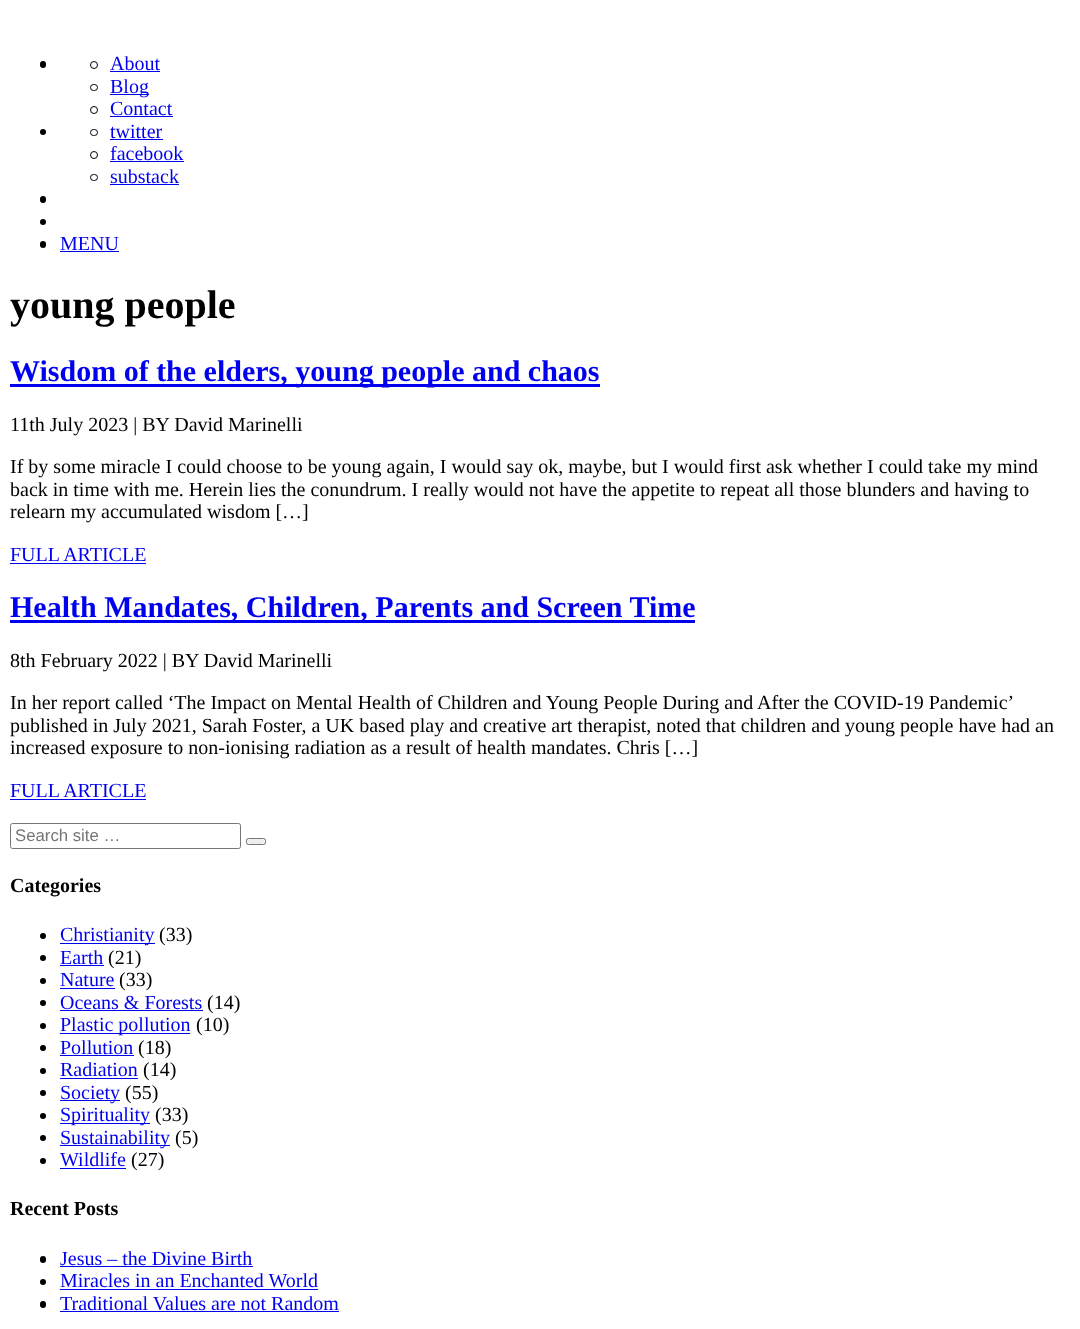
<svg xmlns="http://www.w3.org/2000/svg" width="1080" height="1329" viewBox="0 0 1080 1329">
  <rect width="100%" height="100%" fill="rgb(255,255,255)"/>
  <rect x="40" y="61" width="6" height="7" rx="3" fill="rgb(0,0,0)"/>
  <circle cx="94" cy="65" r="3.5" fill="none" stroke="rgb(0,0,0)"/>
  <text x="110" y="70" font-family="Liberation Serif" font-size="20" fill="rgb(0,0,238)">About</text>
  <rect x="110" y="71" width="50" height="1" fill="rgb(0,0,238)"/>
  <rect x="90.5" y="84.5" width="7" height="6" rx="3" fill="none" stroke="rgb(0,0,0)"/>
  <rect x="110" y="94" width="39" height="1" fill="rgb(0,0,238)"/>
  <text x="110" y="93" font-family="Liberation Serif" font-size="20" fill="rgb(0,0,238)">Blog</text>
  <circle cx="94" cy="110" r="3.5" fill="none" stroke="rgb(0,0,0)"/>
  <text x="110" y="115" font-family="Liberation Serif" font-size="20" fill="rgb(0,0,238)">Contact</text>
  <rect x="110" y="116" width="63" height="1" fill="rgb(0,0,238)"/>
  <circle cx="43" cy="132" r="3" fill="rgb(0,0,0)"/>
  <rect x="90.5" y="129.5" width="7" height="6" rx="3" fill="none" stroke="rgb(0,0,0)"/>
  <text x="110" y="138" font-family="Liberation Serif" font-size="20" fill="rgb(0,0,238)">twitter</text>
  <rect x="110" y="139" width="53" height="1" fill="rgb(0,0,238)"/>
  <circle cx="94" cy="155" r="3.5" fill="none" stroke="rgb(0,0,0)"/>
  <text x="110" y="160" font-family="Liberation Serif" font-size="20" fill="rgb(0,0,238)">facebook</text>
  <rect x="110" y="161" width="74" height="1" fill="rgb(0,0,238)"/>
  <rect x="90.5" y="174.5" width="7" height="6" rx="3" fill="none" stroke="rgb(0,0,0)"/>
  <text x="110" y="183" font-family="Liberation Serif" font-size="20" fill="rgb(0,0,238)">substack</text>
  <rect x="110" y="184" width="69" height="1" fill="rgb(0,0,238)"/>
  <rect x="40" y="196" width="6" height="7" rx="3" fill="rgb(0,0,0)"/>
  <circle cx="43" cy="222" r="3" fill="rgb(0,0,0)"/>
  <rect x="40" y="241" width="6" height="7" rx="3" fill="rgb(0,0,0)"/>
  <text x="60" y="250" font-family="Liberation Serif" font-size="20" fill="rgb(0,0,238)">MENU</text>
  <rect x="60" y="251" width="59" height="1" fill="rgb(0,0,238)"/>
  <text x="10" y="318" font-family="Liberation Serif" font-size="40" font-weight="bold" fill="rgb(0,0,0)">young people</text>
  <rect x="10" y="384" width="590" height="3" fill="rgb(0,0,238)"/>
  <text x="10" y="381" font-family="Liberation Serif" font-size="30" font-weight="bold" fill="rgb(0,0,238)">Wisdom of the elders, young people and chaos</text>
  <g font-family="Liberation Serif" font-size="20" fill="rgb(0,0,0)">
    <text x="10" y="431">11th July 2023 | BY David Marinelli</text>
    <text>
      <tspan x="10" y="473">If by some miracle I could choose to be young again, I would say ok, maybe, but I would first ask whether I could take my mind</tspan>
      <tspan x="10" y="496">back in time with me. Herein lies the conundrum. I really would not have the appetite to repeat all those blunders and having to</tspan>
      <tspan x="10" y="518">relearn my accumulated wisdom […]</tspan>
    </text>
  </g>
  <text x="10" y="561" font-family="Liberation Serif" font-size="20" fill="rgb(0,0,238)">FULL ARTICLE</text>
  <rect x="10" y="563" width="136" height="1" fill="rgb(0,0,238)"/>
  <rect x="10" y="620" width="685" height="3" fill="rgb(0,0,238)"/>
  <text x="10" y="617" font-family="Liberation Serif" font-size="30" font-weight="bold" fill="rgb(0,0,238)">Health Mandates, Children, Parents and Screen Time</text>
  <g font-family="Liberation Serif" font-size="20" fill="rgb(0,0,0)">
    <text x="10" y="667">8th February 2022 | BY David Marinelli</text>
    <text>
      <tspan x="10" y="709">In her report called ‘The Impact on Mental Health of Children and Young People During and After the COVID-19 Pandemic’</tspan>
      <tspan x="10" y="732">published in July 2021, Sarah Foster, a UK based play and creative art therapist, noted that children and young people have had an</tspan>
      <tspan x="10" y="754">increased exposure to non-ionising radiation as a result of health mandates. Chris […]</tspan>
    </text>
  </g>
  <text x="10" y="797" font-family="Liberation Serif" font-size="20" fill="rgb(0,0,238)">FULL ARTICLE</text>
  <rect x="10" y="799" width="136" height="1" fill="rgb(0,0,238)"/>
  <rect x="10.5" y="823.5" width="230" height="25" rx="2" fill="none" stroke="rgb(118,118,118)"/>
  <text x="15" y="841" font-family="Liberation Sans" font-size="16.75" fill="rgb(117,117,117)">Search site …</text>
  <rect x="246.5" y="838.5" width="19" height="6" rx="2" fill="rgb(239,239,239)" stroke="rgb(118,118,118)"/>
  <text x="10" y="892" font-family="Liberation Serif" font-size="20" font-weight="bold" fill="rgb(0,0,0)">Categories</text>
  <circle cx="43" cy="936" r="3" fill="rgb(0,0,0)"/>
  <rect x="60" y="943" width="95" height="1" fill="rgb(0,0,238)"/>
  <text x="60" y="941" font-family="Liberation Serif" font-size="20" fill="rgb(0,0,238)">Christianity</text>
  <text x="159" y="941" font-family="Liberation Serif" font-size="20" fill="rgb(0,0,0)">(33)</text>
  <circle cx="43" cy="958" r="3" fill="rgb(0,0,0)"/>
  <text x="60" y="964" font-family="Liberation Serif" font-size="20" fill="rgb(0,0,238)">Earth</text>
  <rect x="60" y="965" width="44" height="1" fill="rgb(0,0,238)"/>
  <text x="108" y="964" font-family="Liberation Serif" font-size="20" fill="rgb(0,0,0)">(21)</text>
  <circle cx="43" cy="981" r="3" fill="rgb(0,0,0)"/>
  <text x="60" y="986" font-family="Liberation Serif" font-size="20" fill="rgb(0,0,238)">Nature</text>
  <rect x="60" y="988" width="55" height="1" fill="rgb(0,0,238)"/>
  <text x="119" y="986" font-family="Liberation Serif" font-size="20" fill="rgb(0,0,0)">(33)</text>
  <circle cx="43" cy="1003" r="3" fill="rgb(0,0,0)"/>
  <text x="60" y="1009" font-family="Liberation Serif" font-size="20" fill="rgb(0,0,238)">Oceans &amp; Forests</text>
  <rect x="60" y="1010" width="143" height="1" fill="rgb(0,0,238)"/>
  <text x="207" y="1009" font-family="Liberation Serif" font-size="20" fill="rgb(0,0,0)">(14)</text>
  <circle cx="43" cy="1026" r="3" fill="rgb(0,0,0)"/>
  <rect x="60" y="1033" width="130" height="1" fill="rgb(0,0,238)"/>
  <text x="60" y="1031" font-family="Liberation Serif" font-size="20" fill="rgb(0,0,238)">Plastic pollution</text>
  <text x="196" y="1031" font-family="Liberation Serif" font-size="20" fill="rgb(0,0,0)">(10)</text>
  <circle cx="43" cy="1048" r="3" fill="rgb(0,0,0)"/>
  <text x="60" y="1054" font-family="Liberation Serif" font-size="20" fill="rgb(0,0,238)">Pollution</text>
  <rect x="60" y="1055" width="74" height="1" fill="rgb(0,0,238)"/>
  <text x="138" y="1054" font-family="Liberation Serif" font-size="20" fill="rgb(0,0,0)">(18)</text>
  <circle cx="43" cy="1071" r="3" fill="rgb(0,0,0)"/>
  <text x="60" y="1076" font-family="Liberation Serif" font-size="20" fill="rgb(0,0,238)">Radiation</text>
  <rect x="60" y="1078" width="78" height="1" fill="rgb(0,0,238)"/>
  <text x="143" y="1076" font-family="Liberation Serif" font-size="20" fill="rgb(0,0,0)">(14)</text>
  <circle cx="43" cy="1093" r="3" fill="rgb(0,0,0)"/>
  <rect x="60" y="1100" width="60" height="1" fill="rgb(0,0,238)"/>
  <text x="60" y="1099" font-family="Liberation Serif" font-size="20" fill="rgb(0,0,238)">Society</text>
  <text x="125" y="1099" font-family="Liberation Serif" font-size="20" fill="rgb(0,0,0)">(55)</text>
  <circle cx="43" cy="1116" r="3" fill="rgb(0,0,0)"/>
  <rect x="60" y="1123" width="90" height="1" fill="rgb(0,0,238)"/>
  <text x="60" y="1121" font-family="Liberation Serif" font-size="20" fill="rgb(0,0,238)">Spirituality</text>
  <text x="155" y="1121" font-family="Liberation Serif" font-size="20" fill="rgb(0,0,0)">(33)</text>
  <circle cx="43" cy="1138" r="3" fill="rgb(0,0,0)"/>
  <rect x="60" y="1145" width="110" height="1" fill="rgb(0,0,238)"/>
  <text x="60" y="1144" font-family="Liberation Serif" font-size="20" fill="rgb(0,0,238)">Sustainability</text>
  <text x="175" y="1144" font-family="Liberation Serif" font-size="20" fill="rgb(0,0,0)">(5)</text>
  <circle cx="43" cy="1161" r="3" fill="rgb(0,0,0)"/>
  <text x="60" y="1166" font-family="Liberation Serif" font-size="20" fill="rgb(0,0,238)">Wildlife</text>
  <rect x="60" y="1168" width="66" height="1" fill="rgb(0,0,238)"/>
  <text x="131" y="1166" font-family="Liberation Serif" font-size="20" fill="rgb(0,0,0)">(27)</text>
  <text x="10" y="1215" font-family="Liberation Serif" font-size="20" font-weight="bold" fill="rgb(0,0,0)">Recent Posts</text>
  <rect x="40" y="1256" width="6" height="7" rx="3" fill="rgb(0,0,0)"/>
  <text x="60" y="1265" font-family="Liberation Serif" font-size="20" fill="rgb(0,0,238)">Jesus – the Divine Birth</text>
  <rect x="60" y="1266" width="193" height="1" fill="rgb(0,0,238)"/>
  <circle cx="43" cy="1282" r="3" fill="rgb(0,0,0)"/>
  <text x="60" y="1287" font-family="Liberation Serif" font-size="20" fill="rgb(0,0,238)">Miracles in an Enchanted World</text>
  <rect x="60" y="1289" width="258" height="1" fill="rgb(0,0,238)"/>
  <rect x="40" y="1301" width="6" height="7" rx="3" fill="rgb(0,0,0)"/>
  <text x="60" y="1310" font-family="Liberation Serif" font-size="20" fill="rgb(0,0,238)">Traditional Values are not Random</text>
  <rect x="60" y="1311" width="279" height="1" fill="rgb(0,0,238)"/>
</svg>
